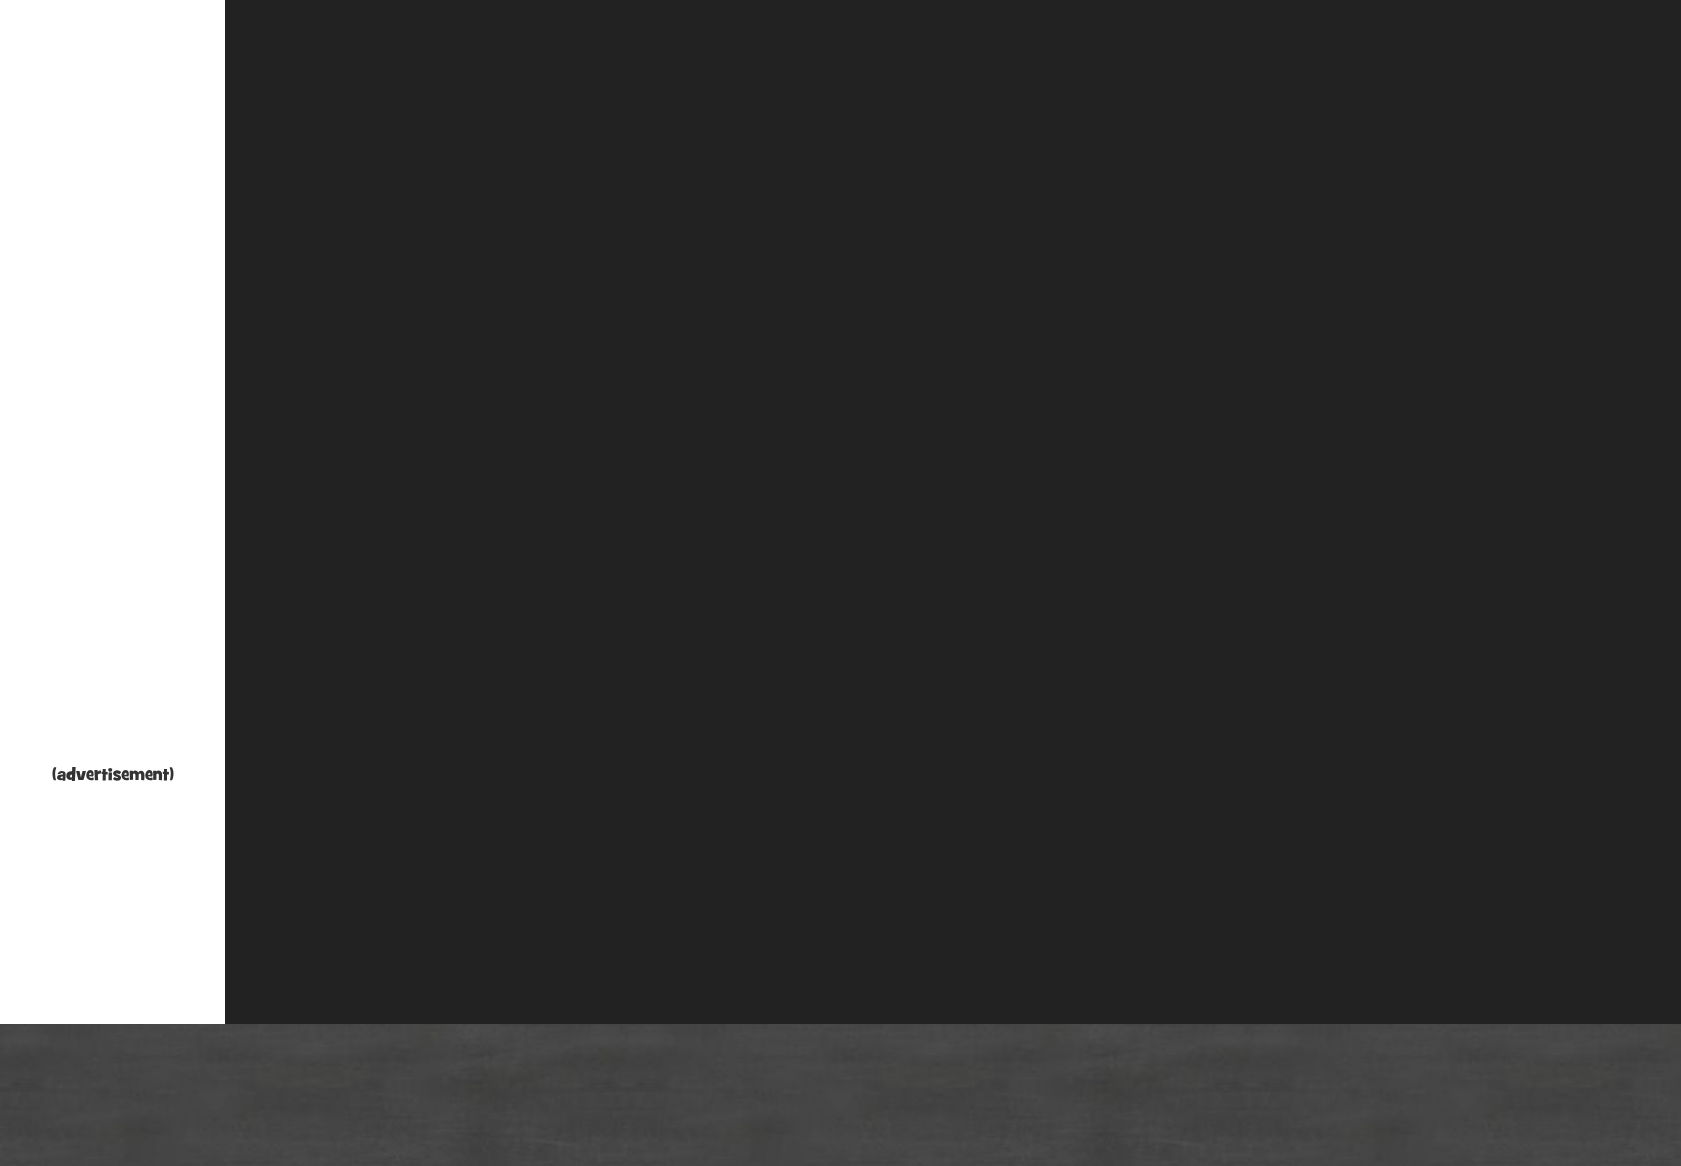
<svg xmlns="http://www.w3.org/2000/svg" width="1681" height="1166" viewBox="0 0 1681 1166">
  <rect width="100%" height="100%" fill="rgb(255,255,255)"/>
  <image x="0" y="1024" width="1681" height="142" href="pic1.png"/>
  <text x="52" y="780" font-family="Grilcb" font-size="17.5" fill="rgb(51,51,51)">(advertisement)</text>
  <rect x="225" y="0" width="1456" height="1024" fill="rgb(34,34,34)"/>
</svg>
